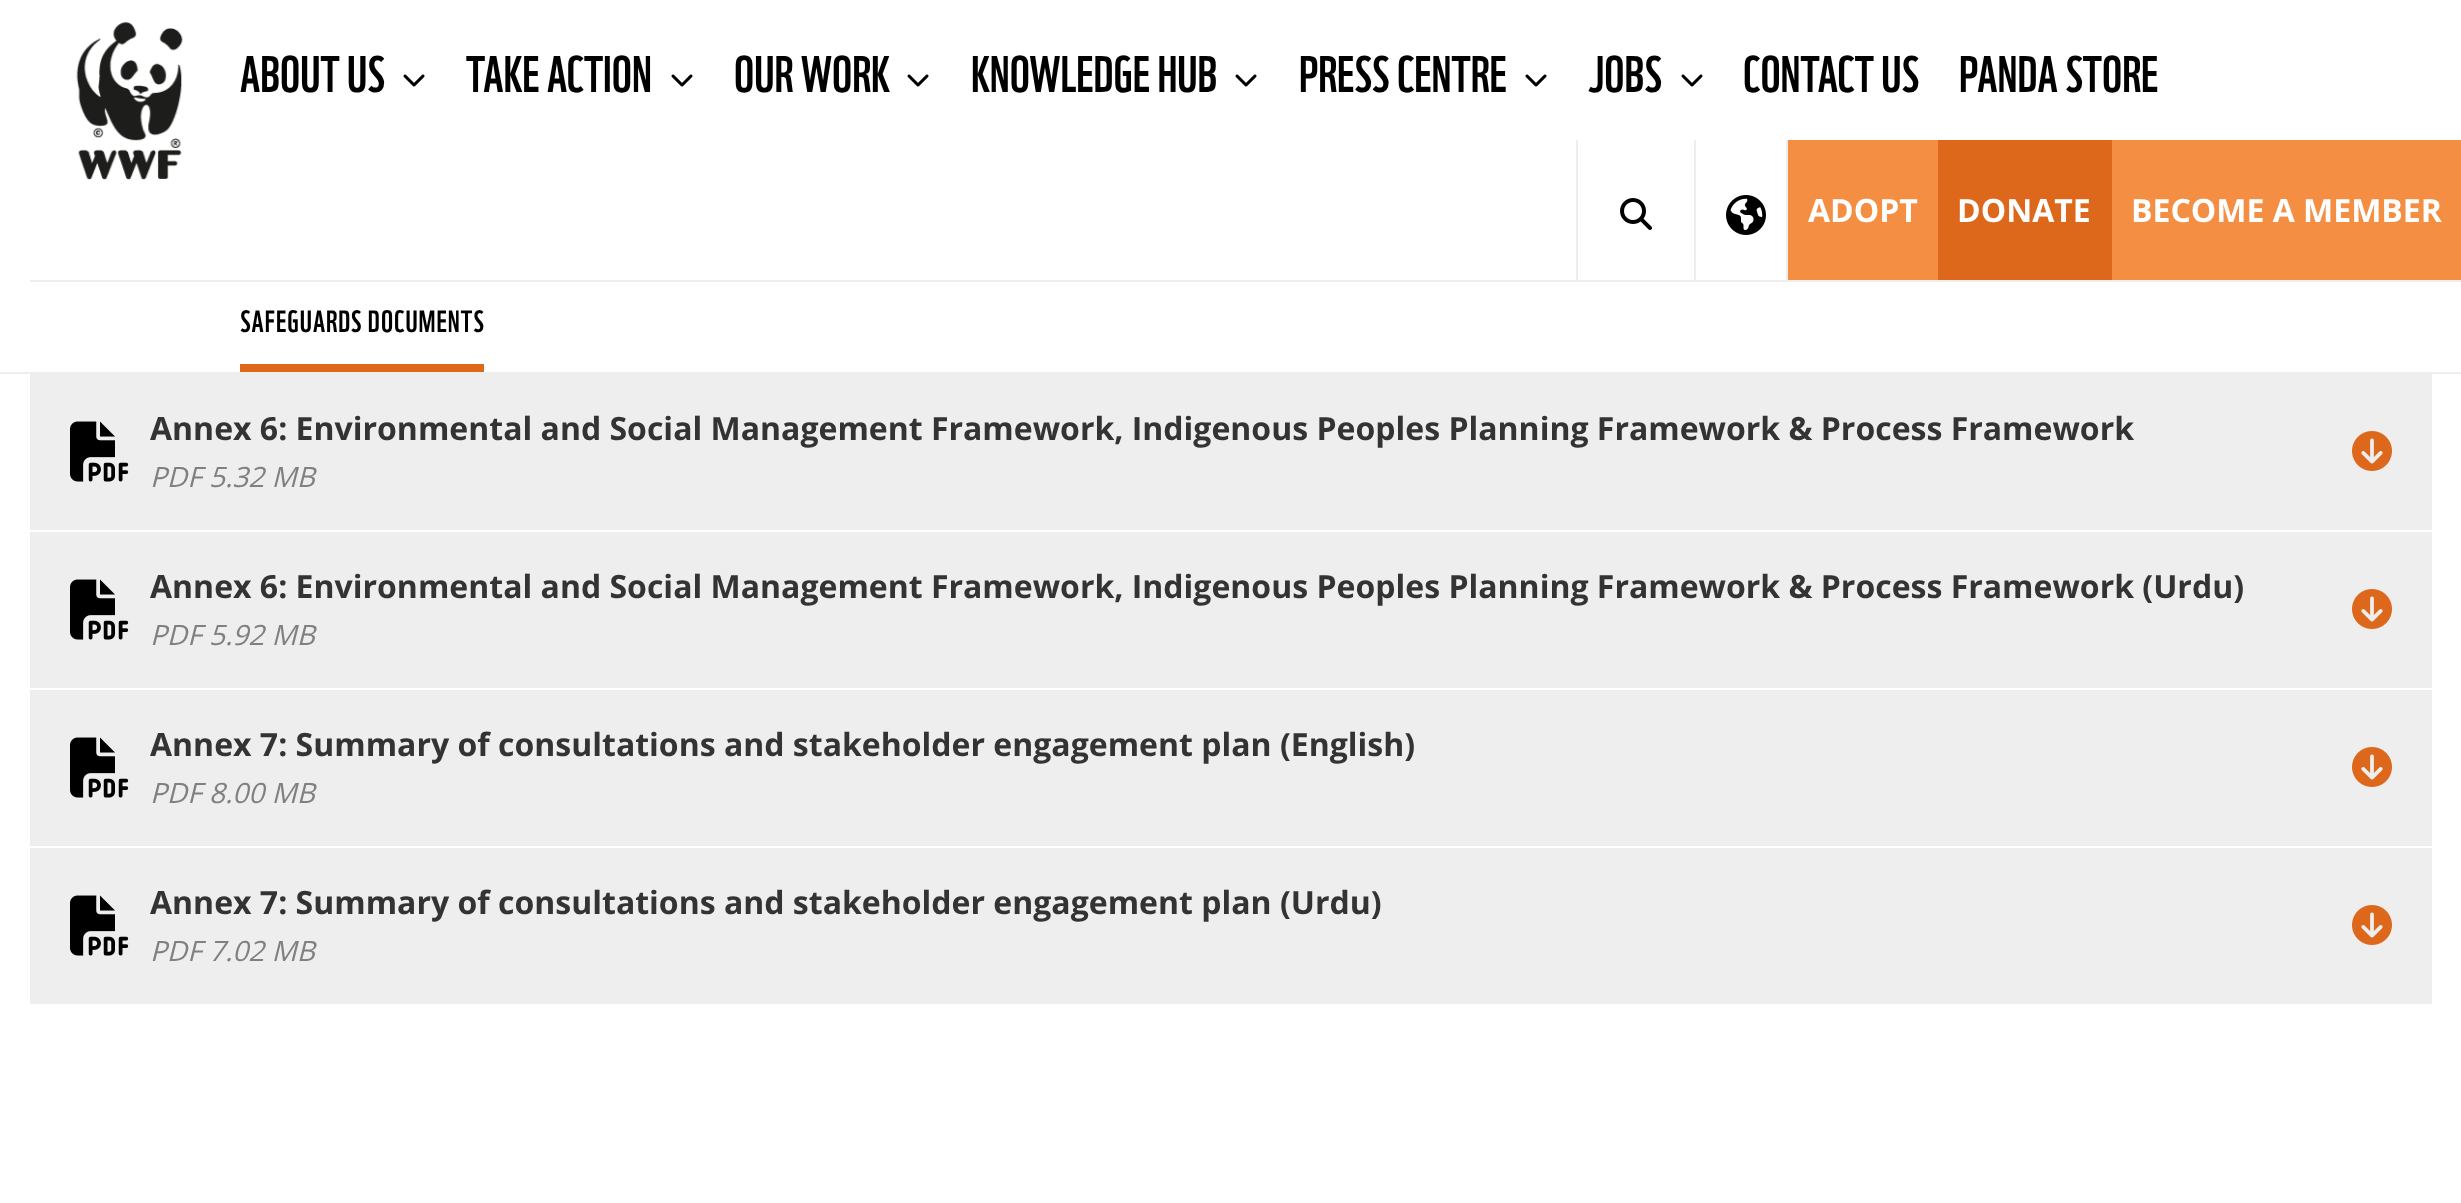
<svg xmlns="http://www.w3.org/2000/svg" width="2461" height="1203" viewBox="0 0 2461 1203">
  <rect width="100%" height="100%" fill="rgb(255,255,255)"/>
  <rect x="0" y="372" width="2461" height="2" fill="rgb(238,238,238)"/>
  <image x="76" y="22" width="107" height="158" href="pic1.png"/>
  <rect x="30" y="280" width="2431" height="2" fill="rgb(238,238,238)"/>
  <text x="240" y="92" font-family="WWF" font-size="50" fill="rgb(0,0,0)">ABOUT US</text>
  <image x="403" y="74" width="22" height="13" href="pic2.png"/>
  <text x="466" y="92" font-family="WWF" font-size="50" fill="rgb(0,0,0)">TAKE ACTION</text>
  <image x="671" y="74" width="22" height="13" href="pic2.png"/>
  <text x="734" y="92" font-family="WWF" font-size="50" fill="rgb(0,0,0)">OUR WORK</text>
  <image x="907" y="74" width="22" height="13" href="pic2.png"/>
  <text x="971" y="92" font-family="WWF" font-size="50" fill="rgb(0,0,0)">KNOWLEDGE HUB</text>
  <image x="1235" y="74" width="22" height="13" href="pic2.png"/>
  <text x="1299" y="92" font-family="WWF" font-size="50" fill="rgb(0,0,0)">PRESS CENTRE</text>
  <image x="1525" y="74" width="22" height="13" href="pic2.png"/>
  <text x="1588" y="92" font-family="WWF" font-size="50" fill="rgb(0,0,0)">JOBS</text>
  <image x="1681" y="74" width="22" height="13" href="pic2.png"/>
  <g font-family="WWF" font-size="50" fill="rgb(0,0,0)">
    <text x="1743" y="92">CONTACT US</text>
    <text x="1959" y="92">PANDA STORE</text>
  </g>
  <rect x="1694" y="140" width="2" height="140" fill="rgb(238,238,238)"/>
  <rect x="1576" y="140" width="2" height="140" fill="rgb(238,238,238)"/>
  <image x="1620" y="198" width="32" height="32" href="pic3.png"/>
  <rect x="1786" y="140" width="2" height="140" fill="rgb(238,238,238)"/>
  <image x="1726" y="195" width="40" height="40" href="pic4.png"/>
  <rect x="1788" y="140" width="150" height="140" fill="rgb(243,142,67)"/>
  <text x="1808" y="222" font-family="Open Sans" font-size="32" font-weight="bold" fill="rgb(255,255,255)">ADOPT</text>
  <rect x="1938" y="140" width="174" height="140" fill="rgb(221,104,27)"/>
  <text x="1957" y="222" font-family="Open Sans" font-size="32" font-weight="bold" fill="rgb(255,255,255)">DONATE</text>
  <rect x="2112" y="140" width="349" height="140" fill="rgb(243,142,67)"/>
  <text x="2131" y="222" font-family="Open Sans" font-size="32" font-weight="bold" fill="rgb(255,255,255)">BECOME A MEMBER</text>
  <rect x="240" y="364" width="244" height="8" fill="rgb(221,104,27)"/>
  <text x="240" y="332" font-family="WWF" font-size="30" letter-spacing="1" fill="rgb(0,0,0)">SAFEGUARDS DOCUMENTS</text>
  <rect x="30" y="374" width="2402" height="156" fill="rgb(238,238,238)"/>
  <image x="70" y="421" width="59" height="61" href="pic5.png"/>
  <text x="150" y="440" font-family="Open Sans" font-size="32" font-weight="bold" fill="rgb(51,51,51)">Annex 6: Environmental and Social Management Framework, Indigenous Peoples Planning Framework &amp; Process Framework</text>
  <image x="2352" y="431" width="40" height="40" href="pic6.png"/>
  <text x="150" y="487" font-family="Open Sans" font-size="28" font-style="italic" fill="rgb(128,128,128)">PDF 5.32 MB</text>
  <rect x="30" y="532" width="2402" height="156" fill="rgb(238,238,238)"/>
  <image x="70" y="579" width="59" height="61" href="pic5.png"/>
  <text x="150" y="598" font-family="Open Sans" font-size="32" font-weight="bold" fill="rgb(51,51,51)">Annex 6: Environmental and Social Management Framework, Indigenous Peoples Planning Framework &amp; Process Framework (Urdu)</text>
  <image x="2352" y="589" width="40" height="40" href="pic6.png"/>
  <text x="150" y="645" font-family="Open Sans" font-size="28" font-style="italic" fill="rgb(128,128,128)">PDF 5.92 MB</text>
  <rect x="30" y="690" width="2402" height="156" fill="rgb(238,238,238)"/>
  <image x="70" y="737" width="59" height="61" href="pic5.png"/>
  <text x="150" y="756" font-family="Open Sans" font-size="32" font-weight="bold" fill="rgb(51,51,51)">Annex 7: Summary of consultations and stakeholder engagement plan (English)</text>
  <image x="2352" y="747" width="40" height="40" href="pic6.png"/>
  <text x="150" y="803" font-family="Open Sans" font-size="28" font-style="italic" fill="rgb(128,128,128)">PDF 8.00 MB</text>
  <rect x="30" y="848" width="2402" height="156" fill="rgb(238,238,238)"/>
  <image x="70" y="895" width="59" height="61" href="pic5.png"/>
  <text x="150" y="914" font-family="Open Sans" font-size="32" font-weight="bold" fill="rgb(51,51,51)">Annex 7: Summary of consultations and stakeholder engagement plan (Urdu)</text>
  <image x="2352" y="905" width="40" height="40" href="pic6.png"/>
  <text x="150" y="961" font-family="Open Sans" font-size="28" font-style="italic" fill="rgb(128,128,128)">PDF 7.02 MB</text>
</svg>
